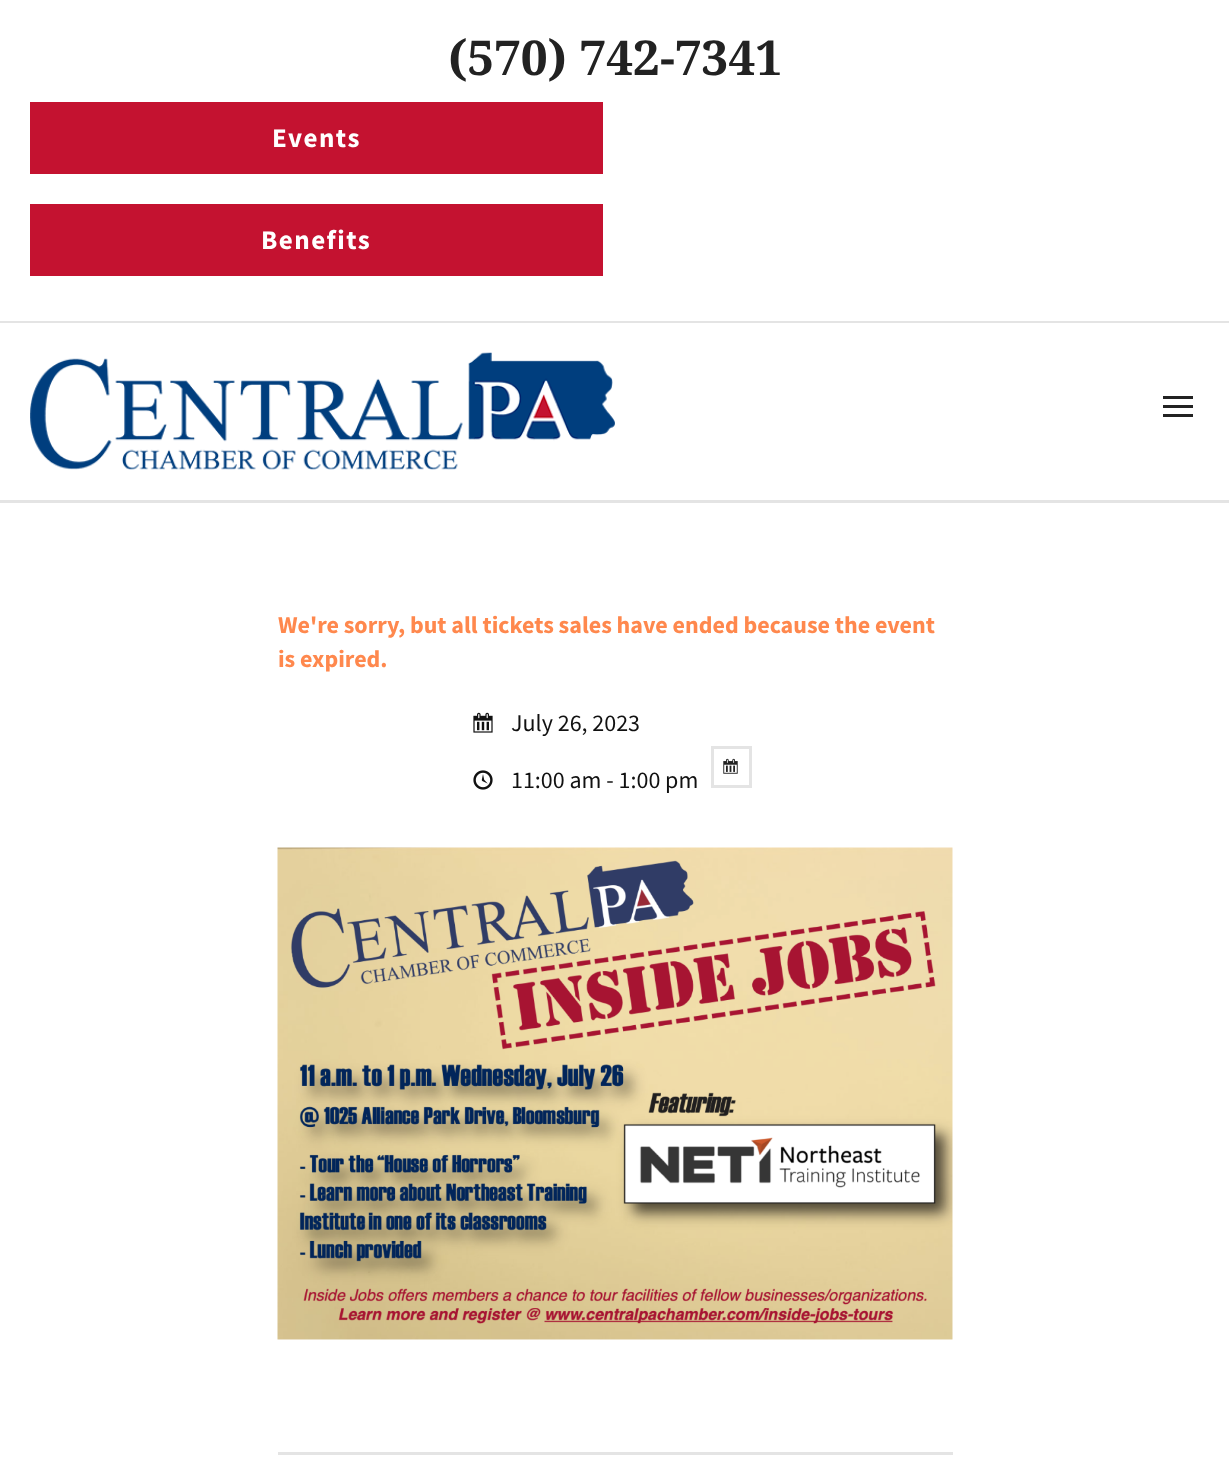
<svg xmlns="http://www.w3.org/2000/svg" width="1229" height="1483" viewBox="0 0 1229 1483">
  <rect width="100%" height="100%" fill="rgb(255,255,255)"/>
  <rect x="0" y="321" width="1229" height="2" fill="rgb(228,228,228)"/>
  <text x="448" y="75" font-family="Droid Serif" font-size="48" font-weight="bold" fill="rgb(34,34,34)">(570) 742-7341</text>
  <rect x="30" y="102" width="573" height="72" fill="rgb(196,18,48)"/>
  <text x="272" y="147" font-family="Source Sans Pro" font-size="27" font-weight="bold" letter-spacing="1.5" fill="rgb(255,255,255)">Events</text>
  <rect x="30" y="204" width="573" height="72" fill="rgb(196,18,48)"/>
  <text x="261" y="249" font-family="Source Sans Pro" font-size="27" font-weight="bold" letter-spacing="1.5" fill="rgb(255,255,255)">Benefits</text>
  <rect x="0" y="500" width="1229" height="3" fill="rgb(228,228,228)"/>
  <image x="30" y="352" width="585" height="118" href="pic1.png"/>
  <rect x="1163" y="405" width="30" height="3" fill="rgb(34,34,34)"/>
  <rect x="1163" y="396" width="30" height="3" fill="rgb(34,34,34)"/>
  <rect x="1163" y="414" width="30" height="3" fill="rgb(34,34,34)"/>
  <g font-family="Source Sans Pro" font-size="24" font-weight="bold" fill="rgb(255,136,77)">
    <text>
      <tspan x="278" y="633">We're sorry, but all tickets sales have ended because the event</tspan>
      <tspan x="278" y="667">is expired.</tspan>
    </text>
  </g>
  <image x="473" y="712" width="20" height="21" href="pic2.png"/>
  <text x="511" y="731" font-family="Source Sans Pro" font-size="24" fill="rgb(17,17,17)">July 26, 2023</text>
  <image x="473" y="770" width="20" height="20" href="pic3.png"/>
  <text x="511" y="788" font-family="Source Sans Pro" font-size="24" fill="rgb(17,17,17)">11:00 am - 1:00 pm</text>
  <rect x="712.5" y="747.5" width="38" height="39" fill="none" stroke="rgb(228,228,228)" stroke-width="3"/>
  <image x="723" y="758" width="15" height="16" href="pic4.png"/>
  <image x="277" y="847" width="676" height="493" href="pic5.png"/>
  <rect x="278" y="1452" width="675" height="3" fill="rgb(228,228,228)"/>
</svg>
